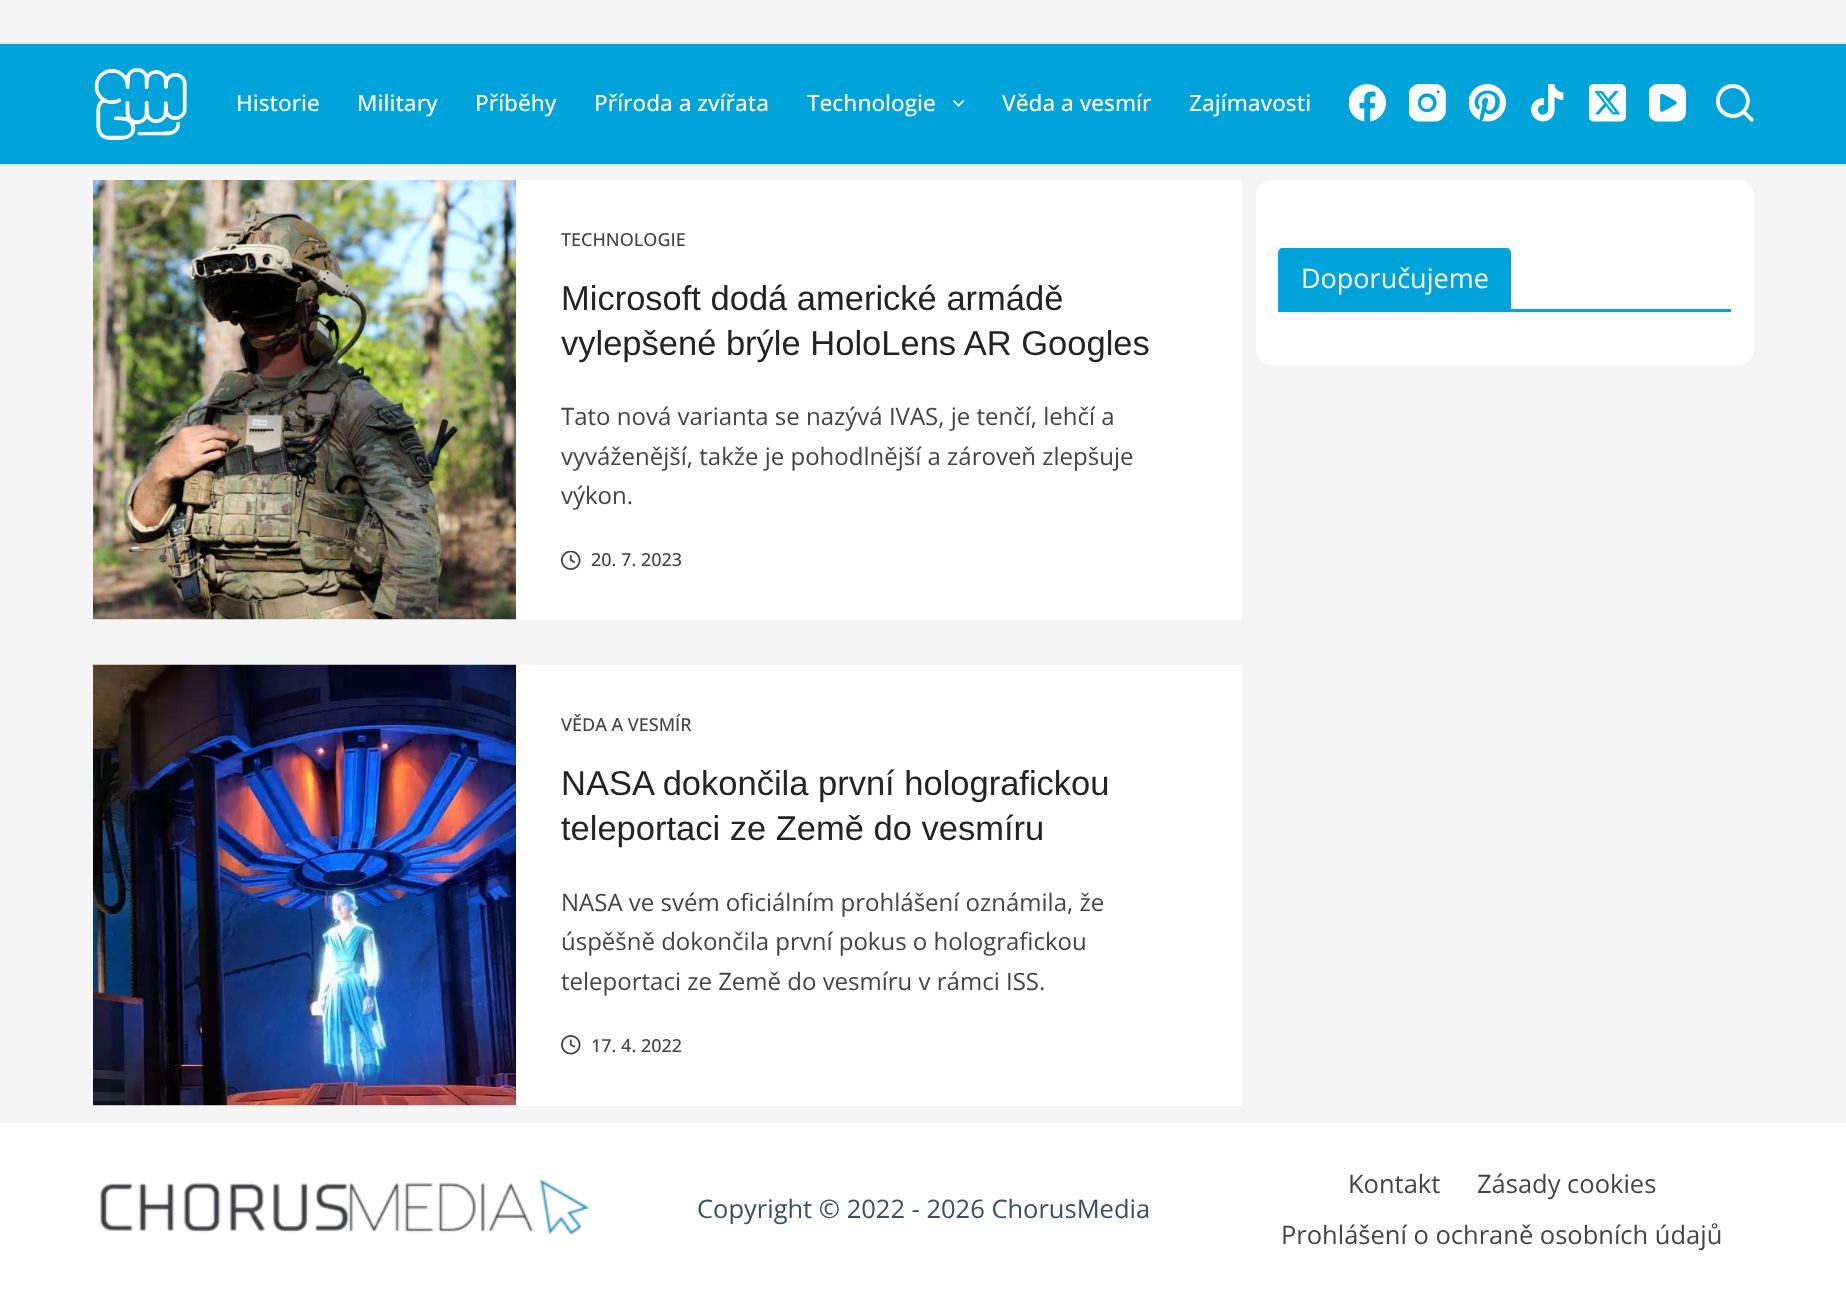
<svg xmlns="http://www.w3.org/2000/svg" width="1846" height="1294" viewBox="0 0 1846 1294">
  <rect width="100%" height="100%" fill="rgb(245,245,245)"/>
  <rect x="0" y="44" width="1846" height="120" fill="rgb(0,164,219)"/>
  <rect x="0" y="42" width="1846" height="2" fill="rgb(225,232,237)"/>
  <rect x="0" y="164" width="1846" height="2" fill="rgb(225,232,237)"/>
  <image x="94" y="68" width="93" height="72" href="pic1.png"/>
  <g font-family="Open Sans" font-size="22.5" font-weight="500" fill="rgb(255,255,255)">
    <text x="236" y="111">Historie</text>
    <text x="357" y="111">Military</text>
    <text x="475" y="111">Příběhy</text>
    <text x="594" y="111">Příroda a zvířata</text>
    <text x="807" y="111">Technologie</text>
  </g>
  <image x="953" y="100" width="12" height="7" href="pic2.png"/>
  <g font-family="Open Sans" font-size="22.5" font-weight="500" fill="rgb(255,255,255)">
    <text x="1002" y="111">Věda a vesmír</text>
    <text x="1189" y="111">Zajímavosti</text>
  </g>
  <image x="1349" y="84" width="37" height="38" href="pic3.png"/>
  <image x="1409" y="84" width="37" height="38" href="pic4.png"/>
  <image x="1469" y="84" width="37" height="38" href="pic5.png"/>
  <image x="1531" y="84" width="33" height="38" href="pic6.png"/>
  <image x="1589" y="84" width="37" height="38" href="pic7.png"/>
  <image x="1649" y="84" width="37" height="38" href="pic8.png"/>
  <image x="1716" y="84" width="38" height="38" href="pic9.png"/>
  <rect x="93" y="180" width="1149" height="440" fill="rgb(255,255,255)"/>
  <image x="93" y="180" width="423" height="440" href="pic10.png"/>
  <text x="561" y="246" font-family="Open Sans" font-size="18" font-weight="500" fill="rgb(68,68,68)">TECHNOLOGIE</text>
  <g font-family="Liberation Sans" font-size="34.5" fill="rgb(35,35,35)">
    <text>
      <tspan x="561" y="310">Microsoft dodá americké armádě</tspan>
      <tspan x="561" y="355">vylepšené brýle HoloLens AR Googles</tspan>
    </text>
  </g>
  <g font-family="Open Sans" font-size="24" fill="rgb(68,68,68)">
    <text>
      <tspan x="561" y="425">Tato nová varianta se nazývá IVAS, je tenčí, lehčí a</tspan>
      <tspan x="561" y="465">vyváženější, takže je pohodlnější a zároveň zlepšuje</tspan>
      <tspan x="561" y="504">výkon.</tspan>
    </text>
  </g>
  <image x="561" y="551" width="20" height="19" href="pic11.png"/>
  <text x="591" y="566" font-family="Open Sans" font-size="18" font-weight="500" fill="rgb(68,68,68)">20. 7. 2023</text>
  <rect x="93" y="665" width="1149" height="441" fill="rgb(255,255,255)"/>
  <image x="93" y="664" width="423" height="442" href="pic12.png"/>
  <text x="561" y="731" font-family="Open Sans" font-size="18" font-weight="500" fill="rgb(68,68,68)">VĚDA A VESMÍR</text>
  <g font-family="Liberation Sans" font-size="34.5" fill="rgb(35,35,35)">
    <text>
      <tspan x="561" y="795">NASA dokončila první holografickou</tspan>
      <tspan x="561" y="840">teleportaci ze Země do vesmíru</tspan>
    </text>
  </g>
  <g font-family="Open Sans" font-size="24" fill="rgb(68,68,68)">
    <text>
      <tspan x="561" y="911">NASA ve svém oficiálním prohlášení oznámila, že</tspan>
      <tspan x="561" y="950">úspěšně dokončila první pokus o holografickou</tspan>
      <tspan x="561" y="990">teleportaci ze Země do vesmíru v rámci ISS.</tspan>
    </text>
  </g>
  <image x="561" y="1035" width="20" height="20" href="pic13.png"/>
  <text x="591" y="1052" font-family="Open Sans" font-size="18" font-weight="500" fill="rgb(68,68,68)">17. 4. 2022</text>
  <rect x="1256" y="180" width="498" height="185" rx="15" fill="rgb(255,255,255)"/>
  <rect x="1278" y="309" width="453" height="3" fill="rgb(0,164,219)"/>
  <path d="M1283 248H1506C1509 248 1511 250 1511 253V309H1278V253C1278 250 1280 248 1283 248Z" fill="rgb(0,164,219)"/>
  <text x="1301" y="288" font-family="Open Sans" font-size="27" fill="rgb(255,255,255)">Doporučujeme</text>
  <rect x="0" y="1123" width="1846" height="171" fill="rgb(255,255,255)"/>
  <rect x="0" y="1121" width="1846" height="2" fill="rgb(242,245,247)"/>
  <image x="100" y="1179" width="490" height="57" href="pic14.png"/>
  <text x="697" y="1218" font-family="Open Sans" font-size="25.5" fill="rgb(58,79,102)">Copyright © 2022 - 2026 ChorusMedia</text>
  <g font-family="Open Sans" font-size="25.5" fill="rgb(68,68,68)">
    <text x="1348" y="1193">Kontakt</text>
    <text x="1477" y="1193">Zásady cookies</text>
    <text x="1281" y="1244">Prohlášení o ochraně osobních údajů</text>
  </g>
</svg>
